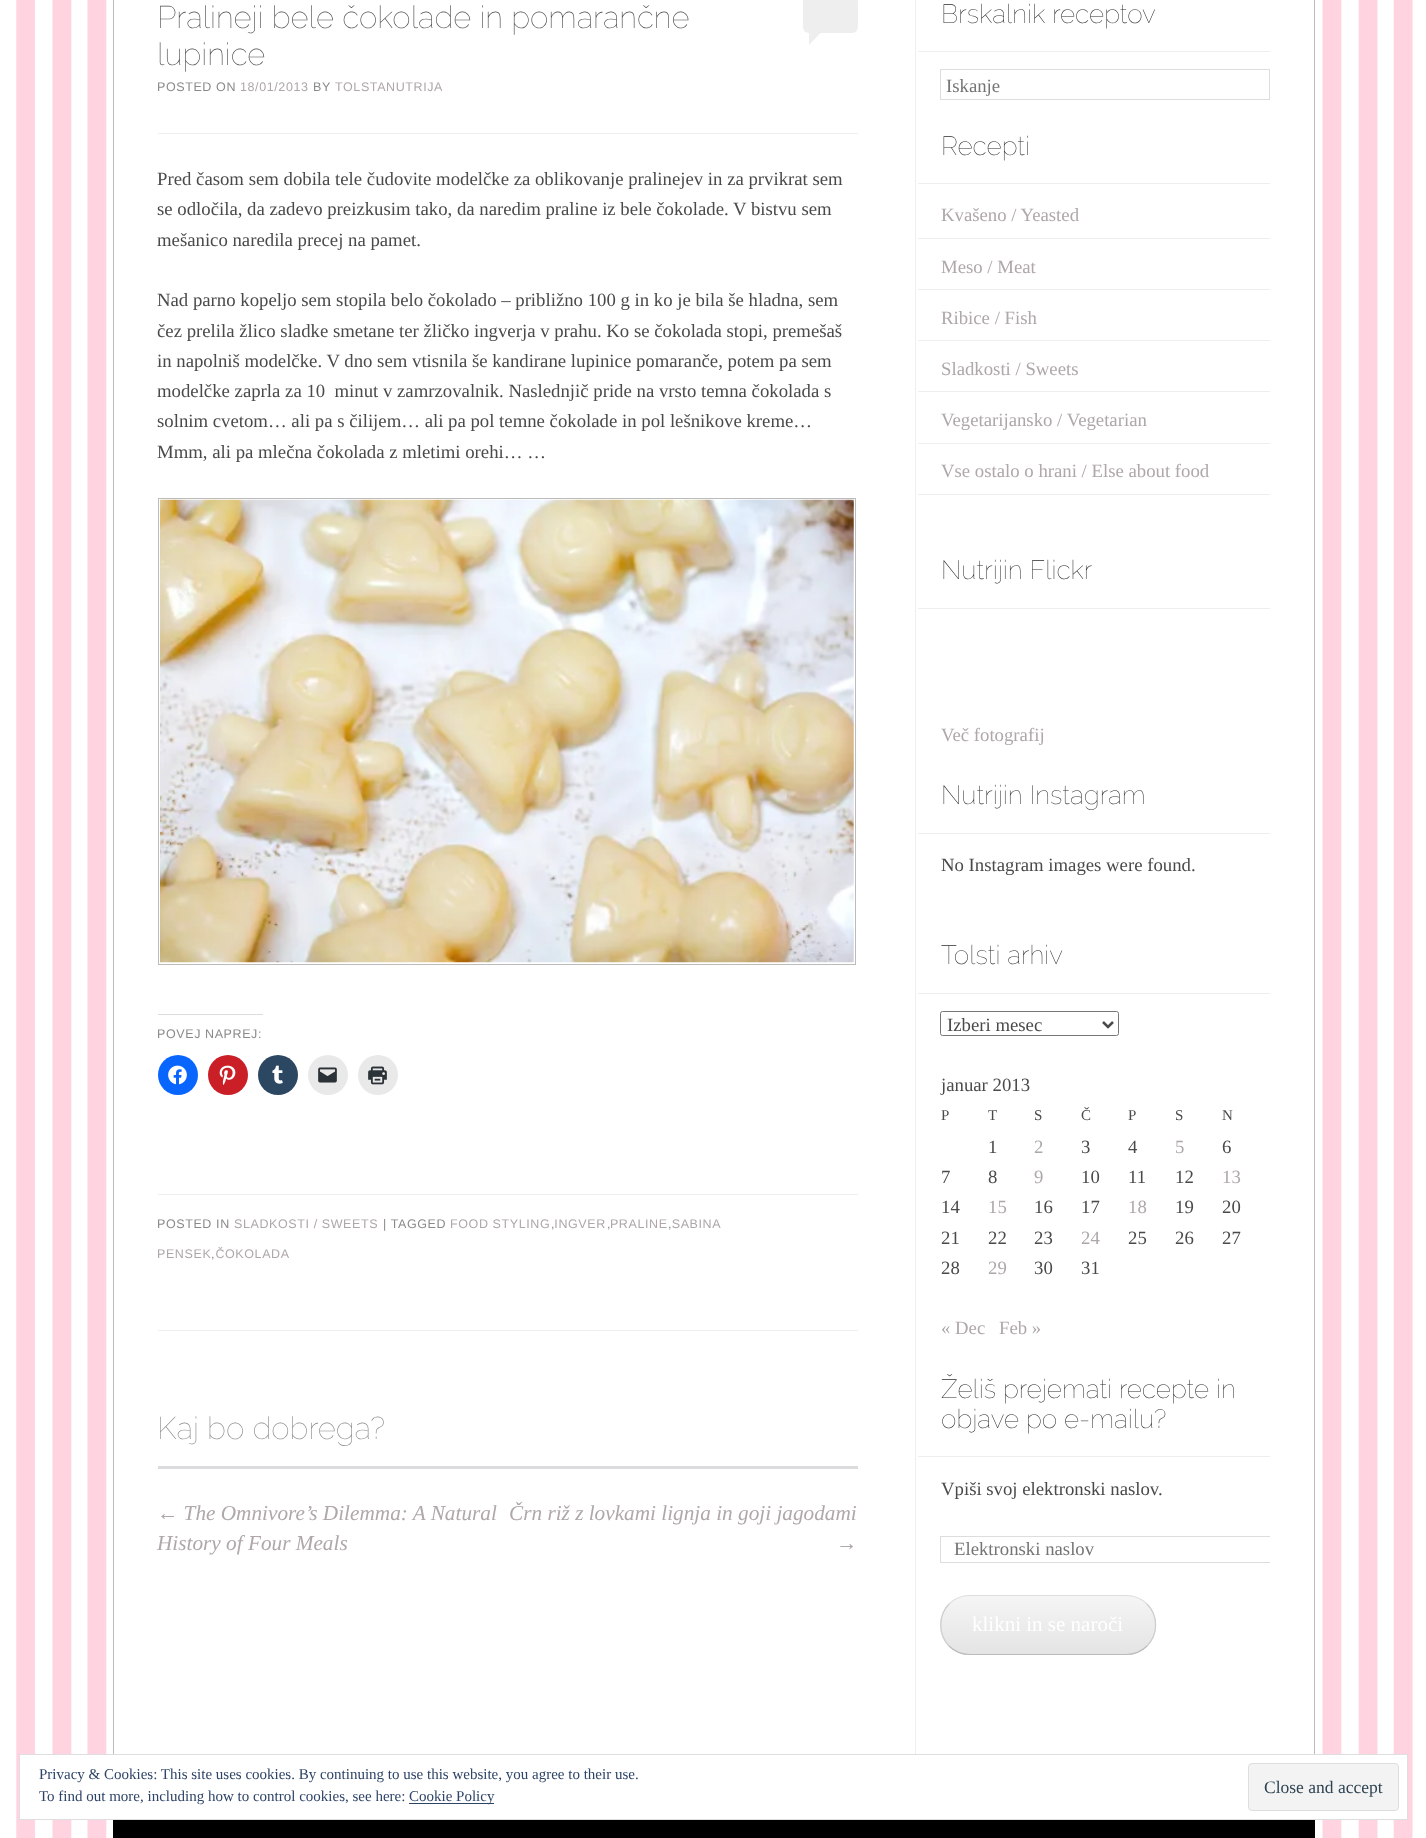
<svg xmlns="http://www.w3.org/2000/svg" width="1426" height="1838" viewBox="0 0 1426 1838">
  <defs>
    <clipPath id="clip1"><rect x="916" y="1374" width="354" height="311"/></clipPath>
    <clipPath id="clip2"><rect x="940" y="1595" width="216" height="60" rx="30"/></clipPath>
    <linearGradient id="g1" gradientUnits="userSpaceOnUse" x1="1048" y1="1596" x2="1048" y2="1654"><stop offset="0" stop-color="rgb(245,245,245)"/><stop offset="1" stop-color="rgb(228,228,228)"/></linearGradient>
  </defs>
  <rect width="100%" height="100%" fill="rgb(255,255,255)"/>
  <image x="16" y="0" width="1397" height="1838" href="pic1.png"/>
  <rect x="122" y="0" width="1186" height="1754" fill="rgb(255,255,255)"/>
  <rect x="113.5" y="-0.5" width="1201" height="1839" fill="none" stroke="rgb(187,187,187)"/>
  <g font-family="Raleway" font-size="31.25" font-weight="100" fill="rgb(74,74,74)">
    <text>
      <tspan x="157" y="28">Pralineji bele čokolade in pomarančne</tspan>
      <tspan x="157" y="65">lupinice</tspan>
    </text>
  </g>
  <rect x="803" y="-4" width="55" height="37" rx="6" fill="rgb(238,238,238)"/>
  <path d="M809 45V32.5H821Z" fill="rgb(238,238,238)"/>
  <rect x="158" y="133" width="700" height="1" fill="rgb(238,238,238)"/>
  <text x="157" y="91" font-family="Liberation Sans" font-size="12.5" letter-spacing="0.6" fill="rgb(138,138,138)">POSTED ON</text>
  <text x="240" y="91" font-family="Liberation Sans" font-size="12.5" letter-spacing="0.6" fill="rgb(175,167,169)">18/01/2013</text>
  <text x="313" y="91" font-family="Liberation Sans" font-size="12.5" letter-spacing="0.6" fill="rgb(138,138,138)">BY</text>
  <text x="335" y="91" font-family="Liberation Sans" font-size="12.5" letter-spacing="0.6" fill="rgb(175,167,169)">TOLSTANUTRIJA</text>
  <g font-family="Liberation Serif" font-size="18.75" fill="rgb(74,74,74)">
    <text>
      <tspan x="157" y="185">Pred časom sem dobila tele čudovite modelčke za oblikovanje pralinejev in za prvikrat sem</tspan>
      <tspan x="157" y="215">se odločila, da zadevo preizkusim tako, da naredim praline iz bele čokolade. V bistvu sem</tspan>
      <tspan x="157" y="246">mešanico naredila precej na pamet.</tspan>
    </text>
    <text xml:space="preserve"><tspan x="157" y="306">Nad parno kopeljo sem stopila belo čokolado – približno 100 g in ko je bila še hladna, sem</tspan><tspan x="157" y="337">čez prelila žlico sladke smetane ter žličko ingverja v prahu. Ko se čokolada stopi, premešaš</tspan><tspan x="157" y="367">in napolniš modelčke. V dno sem vtisnila še kandirane lupinice pomaranče, potem pa sem</tspan><tspan x="157" y="397">modelčke zaprla za 10  minut v zamrzovalnik. Naslednjič pride na vrsto temna čokolada s</tspan><tspan x="157" y="427">solnim cvetom… ali pa s čilijem… ali pa pol temne čokolade in pol lešnikove kreme…</tspan><tspan x="157" y="458">Mmm, ali pa mlečna čokolada z mletimi orehi… …</tspan></text>
  </g>
  <rect x="158.5" y="498.5" width="697" height="466" fill="none" stroke="rgb(187,187,187)"/>
  <image x="160" y="499" width="694" height="464" href="pic2.png"/>
  <rect x="158" y="1014" width="105" height="1" fill="rgb(220,220,222)"/>
  <text x="157" y="1038" font-family="Liberation Sans" font-size="12.5" letter-spacing="0.6" fill="rgb(138,138,138)">POVEJ NAPREJ:</text>
  <circle cx="178" cy="1075" r="20" fill="rgb(8,102,255)"/>
  <image x="168" y="1065" width="19" height="20" href="pic3.png"/>
  <circle cx="228" cy="1075" r="20" fill="rgb(202,31,39)"/>
  <image x="219" y="1065" width="17" height="20" href="pic4.png"/>
  <circle cx="278" cy="1075" r="20" fill="rgb(44,71,98)"/>
  <image x="272" y="1065" width="11" height="19" href="pic5.png"/>
  <circle cx="328" cy="1075" r="20" fill="rgb(233,233,233)"/>
  <image x="318" y="1067" width="19" height="16" href="pic6.png"/>
  <circle cx="378" cy="1075" r="20" fill="rgb(233,233,233)"/>
  <image x="368" y="1066" width="19" height="19" href="pic7.png"/>
  <rect x="158" y="1194" width="700" height="1" fill="rgb(238,238,238)"/>
  <text x="157" y="1228" font-family="Liberation Sans" font-size="12.5" letter-spacing="0.6" fill="rgb(138,138,138)">POSTED IN</text>
  <text x="234" y="1228" font-family="Liberation Sans" font-size="12.5" letter-spacing="0.6" fill="rgb(175,167,169)">SLADKOSTI / SWEETS</text>
  <text x="383" y="1228" font-family="Liberation Sans" font-size="12.5" letter-spacing="0.6" fill="rgb(138,138,138)">| TAGGED</text>
  <text x="450" y="1228" font-family="Liberation Sans" font-size="12.5" letter-spacing="0.6" fill="rgb(175,167,169)">FOOD STYLING INGVER PRALINE SABINA</text>
  <g font-family="Liberation Sans" font-size="12.5" letter-spacing="0.6" fill="rgb(138,138,138)">
    <text x="551" y="1228">,</text>
    <text x="607" y="1228">,</text>
    <text x="668" y="1228">,</text>
  </g>
  <text x="157" y="1258" font-family="Liberation Sans" font-size="12.5" letter-spacing="0.6" fill="rgb(175,167,169)">PENSEK ČOKOLADA</text>
  <text x="211" y="1258" font-family="Liberation Sans" font-size="12.5" letter-spacing="0.6" fill="rgb(138,138,138)">,</text>
  <rect x="158" y="1330" width="700" height="1" fill="rgb(238,238,238)"/>
  <text x="157" y="1439" font-family="Raleway" font-size="31.25" font-weight="100" fill="rgb(138,138,138)">Kaj bo dobrega?</text>
  <rect x="158" y="1466" width="700" height="3" fill="rgb(220,220,222)"/>
  <g font-family="Liberation Serif" font-size="21.25" font-style="italic" fill="rgb(175,167,169)">
    <text>
      <tspan x="157" y="1520">← The Omnivore’s Dilemma: A Natural</tspan>
      <tspan x="157" y="1550">History of Four Meals</tspan>
    </text>
    <text x="509" y="1520">Črn riž z lovkami lignja in goji jagodami</text>
    <text x="836" y="1550">→</text>
  </g>
  <rect x="915" y="0" width="1" height="1754" fill="rgb(238,238,238)"/>
  <rect x="918" y="51" width="352" height="1" fill="rgb(238,238,238)"/>
  <text x="941" y="23" font-family="Raleway" font-size="26.25" font-weight="100" fill="rgb(42,42,42)">Brskalnik receptov</text>
  <rect x="940.5" y="69.5" width="329" height="30" fill="none" stroke="rgb(221,221,221)"/>
  <text x="946" y="92" font-family="Liberation Serif" font-size="18.75" fill="rgb(117,117,117)">Iskanje</text>
  <rect x="918" y="183" width="352" height="1" fill="rgb(238,238,238)"/>
  <text x="941" y="155" font-family="Raleway" font-size="26.25" font-weight="100" fill="rgb(42,42,42)">Recepti</text>
  <rect x="918" y="238" width="352" height="1" fill="rgb(238,238,238)"/>
  <text x="941" y="221" font-family="Liberation Serif" font-size="18.75" fill="rgb(175,167,169)">Kvašeno / Yeasted</text>
  <rect x="918" y="289" width="352" height="1" fill="rgb(238,238,238)"/>
  <text x="941" y="273" font-family="Liberation Serif" font-size="18.75" fill="rgb(175,167,169)">Meso / Meat</text>
  <rect x="918" y="340" width="352" height="1" fill="rgb(238,238,238)"/>
  <text x="941" y="324" font-family="Liberation Serif" font-size="18.75" fill="rgb(175,167,169)">Ribice / Fish</text>
  <rect x="918" y="391" width="352" height="1" fill="rgb(238,238,238)"/>
  <text x="941" y="375" font-family="Liberation Serif" font-size="18.75" fill="rgb(175,167,169)">Sladkosti / Sweets</text>
  <rect x="918" y="443" width="352" height="1" fill="rgb(238,238,238)"/>
  <text x="941" y="426" font-family="Liberation Serif" font-size="18.75" fill="rgb(175,167,169)">Vegetarijansko / Vegetarian</text>
  <rect x="918" y="494" width="352" height="1" fill="rgb(238,238,238)"/>
  <text x="941" y="477" font-family="Liberation Serif" font-size="18.75" fill="rgb(175,167,169)">Vse ostalo o hrani / Else about food</text>
  <rect x="918" y="608" width="352" height="1" fill="rgb(238,238,238)"/>
  <text x="941" y="579" font-family="Raleway" font-size="26.25" font-weight="100" fill="rgb(42,42,42)">Nutrijin Flickr</text>
  <text x="941" y="741" font-family="Liberation Serif" font-size="18.75" fill="rgb(175,167,169)">Več fotografij</text>
  <rect x="918" y="833" width="352" height="1" fill="rgb(238,238,238)"/>
  <text x="941" y="804" font-family="Raleway" font-size="26.25" font-weight="100" fill="rgb(42,42,42)">Nutrijin Instagram</text>
  <text x="941" y="871" font-family="Liberation Serif" font-size="18.75" fill="rgb(74,74,74)">No Instagram images were found.</text>
  <rect x="918" y="993" width="352" height="1" fill="rgb(238,238,238)"/>
  <text x="941" y="964" font-family="Raleway" font-size="26.25" font-weight="100" fill="rgb(42,42,42)">Tolsti arhiv</text>
  <rect x="940.5" y="1011.5" width="178" height="24" rx="2" fill="none" stroke="rgb(118,118,118)"/>
  <path d="M1103 1022L1108 1027L1113 1022" fill="none" stroke="rgb(74,74,74)" stroke-width="2.5"/>
  <g font-family="Liberation Serif" font-size="18.75" fill="rgb(74,74,74)">
    <text x="947" y="1031">Izberi mesec</text>
    <text x="941" y="1091">januar 2013</text>
  </g>
  <g font-family="Liberation Serif" font-size="15" fill="rgb(74,74,74)">
    <text x="941" y="1120">P</text>
    <text x="988" y="1120">T</text>
    <text x="1034" y="1120">S</text>
    <text x="1081" y="1120">Č</text>
    <text x="1128" y="1120">P</text>
    <text x="1175" y="1120">S</text>
    <text x="1222" y="1120">N</text>
  </g>
  <text x="988" y="1153" font-family="Liberation Serif" font-size="18.75" fill="rgb(74,74,74)">1</text>
  <text x="1034" y="1153" font-family="Liberation Serif" font-size="18.75" fill="rgb(175,167,169)">2</text>
  <g font-family="Liberation Serif" font-size="18.75" fill="rgb(74,74,74)">
    <text x="1081" y="1153">3</text>
    <text x="1128" y="1153">4</text>
  </g>
  <text x="1175" y="1153" font-family="Liberation Serif" font-size="18.75" fill="rgb(175,167,169)">5</text>
  <g font-family="Liberation Serif" font-size="18.75" fill="rgb(74,74,74)">
    <text x="1222" y="1153">6</text>
    <text x="941" y="1183">7</text>
    <text x="988" y="1183">8</text>
  </g>
  <text x="1034" y="1183" font-family="Liberation Serif" font-size="18.75" fill="rgb(175,167,169)">9</text>
  <g font-family="Liberation Serif" font-size="18.75" fill="rgb(74,74,74)">
    <text x="1081" y="1183">10</text>
    <text x="1128" y="1183">11</text>
    <text x="1175" y="1183">12</text>
  </g>
  <text x="1222" y="1183" font-family="Liberation Serif" font-size="18.75" fill="rgb(175,167,169)">13</text>
  <text x="941" y="1213" font-family="Liberation Serif" font-size="18.75" fill="rgb(74,74,74)">14</text>
  <text x="988" y="1213" font-family="Liberation Serif" font-size="18.75" fill="rgb(175,167,169)">15</text>
  <g font-family="Liberation Serif" font-size="18.75" fill="rgb(74,74,74)">
    <text x="1034" y="1213">16</text>
    <text x="1081" y="1213">17</text>
  </g>
  <text x="1128" y="1213" font-family="Liberation Serif" font-size="18.75" fill="rgb(175,167,169)">18</text>
  <g font-family="Liberation Serif" font-size="18.75" fill="rgb(74,74,74)">
    <text x="1175" y="1213">19</text>
    <text x="1222" y="1213">20</text>
    <text x="941" y="1244">21</text>
    <text x="988" y="1244">22</text>
    <text x="1034" y="1244">23</text>
  </g>
  <text x="1081" y="1244" font-family="Liberation Serif" font-size="18.75" fill="rgb(175,167,169)">24</text>
  <g font-family="Liberation Serif" font-size="18.75" fill="rgb(74,74,74)">
    <text x="1128" y="1244">25</text>
    <text x="1175" y="1244">26</text>
    <text x="1222" y="1244">27</text>
    <text x="941" y="1274">28</text>
  </g>
  <text x="988" y="1274" font-family="Liberation Serif" font-size="18.75" fill="rgb(175,167,169)">29</text>
  <g font-family="Liberation Serif" font-size="18.75" fill="rgb(74,74,74)">
    <text x="1034" y="1274">30</text>
    <text x="1081" y="1274">31</text>
  </g>
  <g font-family="Liberation Serif" font-size="18.75" fill="rgb(175,167,169)">
    <text x="941" y="1334">« Dec</text>
    <text x="999" y="1334">Feb »</text>
  </g>
  <rect x="918" y="1456" width="352" height="1" fill="rgb(238,238,238)"/>
  <g font-family="Raleway" font-size="26.25" font-weight="100" fill="rgb(42,42,42)">
    <text>
      <tspan x="941" y="1398">Želiš prejemati recepte in</tspan>
      <tspan x="941" y="1428">objave po e-mailu?</tspan>
    </text>
  </g>
  <text x="941" y="1495" font-family="Liberation Serif" font-size="18.75" fill="rgb(74,74,74)">Vpiši svoj elektronski naslov.</text>
  <g clip-path="url(#clip1)">
    <rect x="940.5" y="1536.5" width="339" height="26" fill="none" stroke="rgb(221,221,221)"/>
  </g>
  <text x="954" y="1555" font-family="Liberation Serif" font-size="18.75" fill="rgb(117,117,117)">Elektronski naslov</text>
  <g clip-path="url(#clip2)">
    <rect x="940" y="1596" width="216" height="58" fill="url(#g1)"/>
  </g>
  <path d="M949 1604C954.5 1598.5 962 1595.5 970 1595.5H1126C1134 1595.5 1141.5 1598.5 1147 1604" fill="none" stroke="rgb(221,221,221)" stroke-width="1.2"/>
  <path d="M1147 1604C1158.5 1615.5 1158.5 1634.5 1147 1646" fill="none" stroke="rgb(204,204,204)" stroke-width="1.2"/>
  <path d="M1147 1646C1141.5 1651.5 1134 1654.5 1126 1654.5H970C962 1654.5 954.5 1651.5 949 1646" fill="none" stroke="rgb(187,187,187)" stroke-width="1.2"/>
  <path d="M949 1646C938 1634.5 938 1615.5 949 1604" fill="none" stroke="rgb(204,204,204)" stroke-width="1.2"/>
  <text x="972" y="1631" font-family="Liberation Serif" font-size="21" fill="rgb(255,255,255)">klikni in se naroči</text>
  <rect x="113" y="1820" width="1202" height="18" fill="rgb(0,0,0)"/>
  <rect x="19.5" y="1754.5" width="1388" height="65" fill="rgb(255,255,255)" stroke="rgb(222,222,222)"/>
  <g font-family="Liberation Serif" font-size="15" fill="rgb(46,68,103)">
    <text>
      <tspan x="39" y="1779">Privacy &amp; Cookies: This site uses cookies. By continuing to use this website, you agree to their use.</tspan>
      <tspan x="39" y="1801">To find out more, including how to control cookies, see here:</tspan>
    </text>
  </g>
  <rect x="409" y="1803" width="85" height="1" fill="rgb(46,68,103)"/>
  <text x="409" y="1801" font-family="Liberation Serif" font-size="15" fill="rgb(46,68,103)">Cookie Policy</text>
  <rect x="1248.5" y="1763.5" width="150" height="47" rx="3.5" fill="rgb(243,243,243)" stroke="rgb(222,222,222)"/>
  <text x="1264" y="1793" font-family="Liberation Serif" font-size="17.5" fill="rgb(46,68,83)">Close and accept</text>
</svg>
